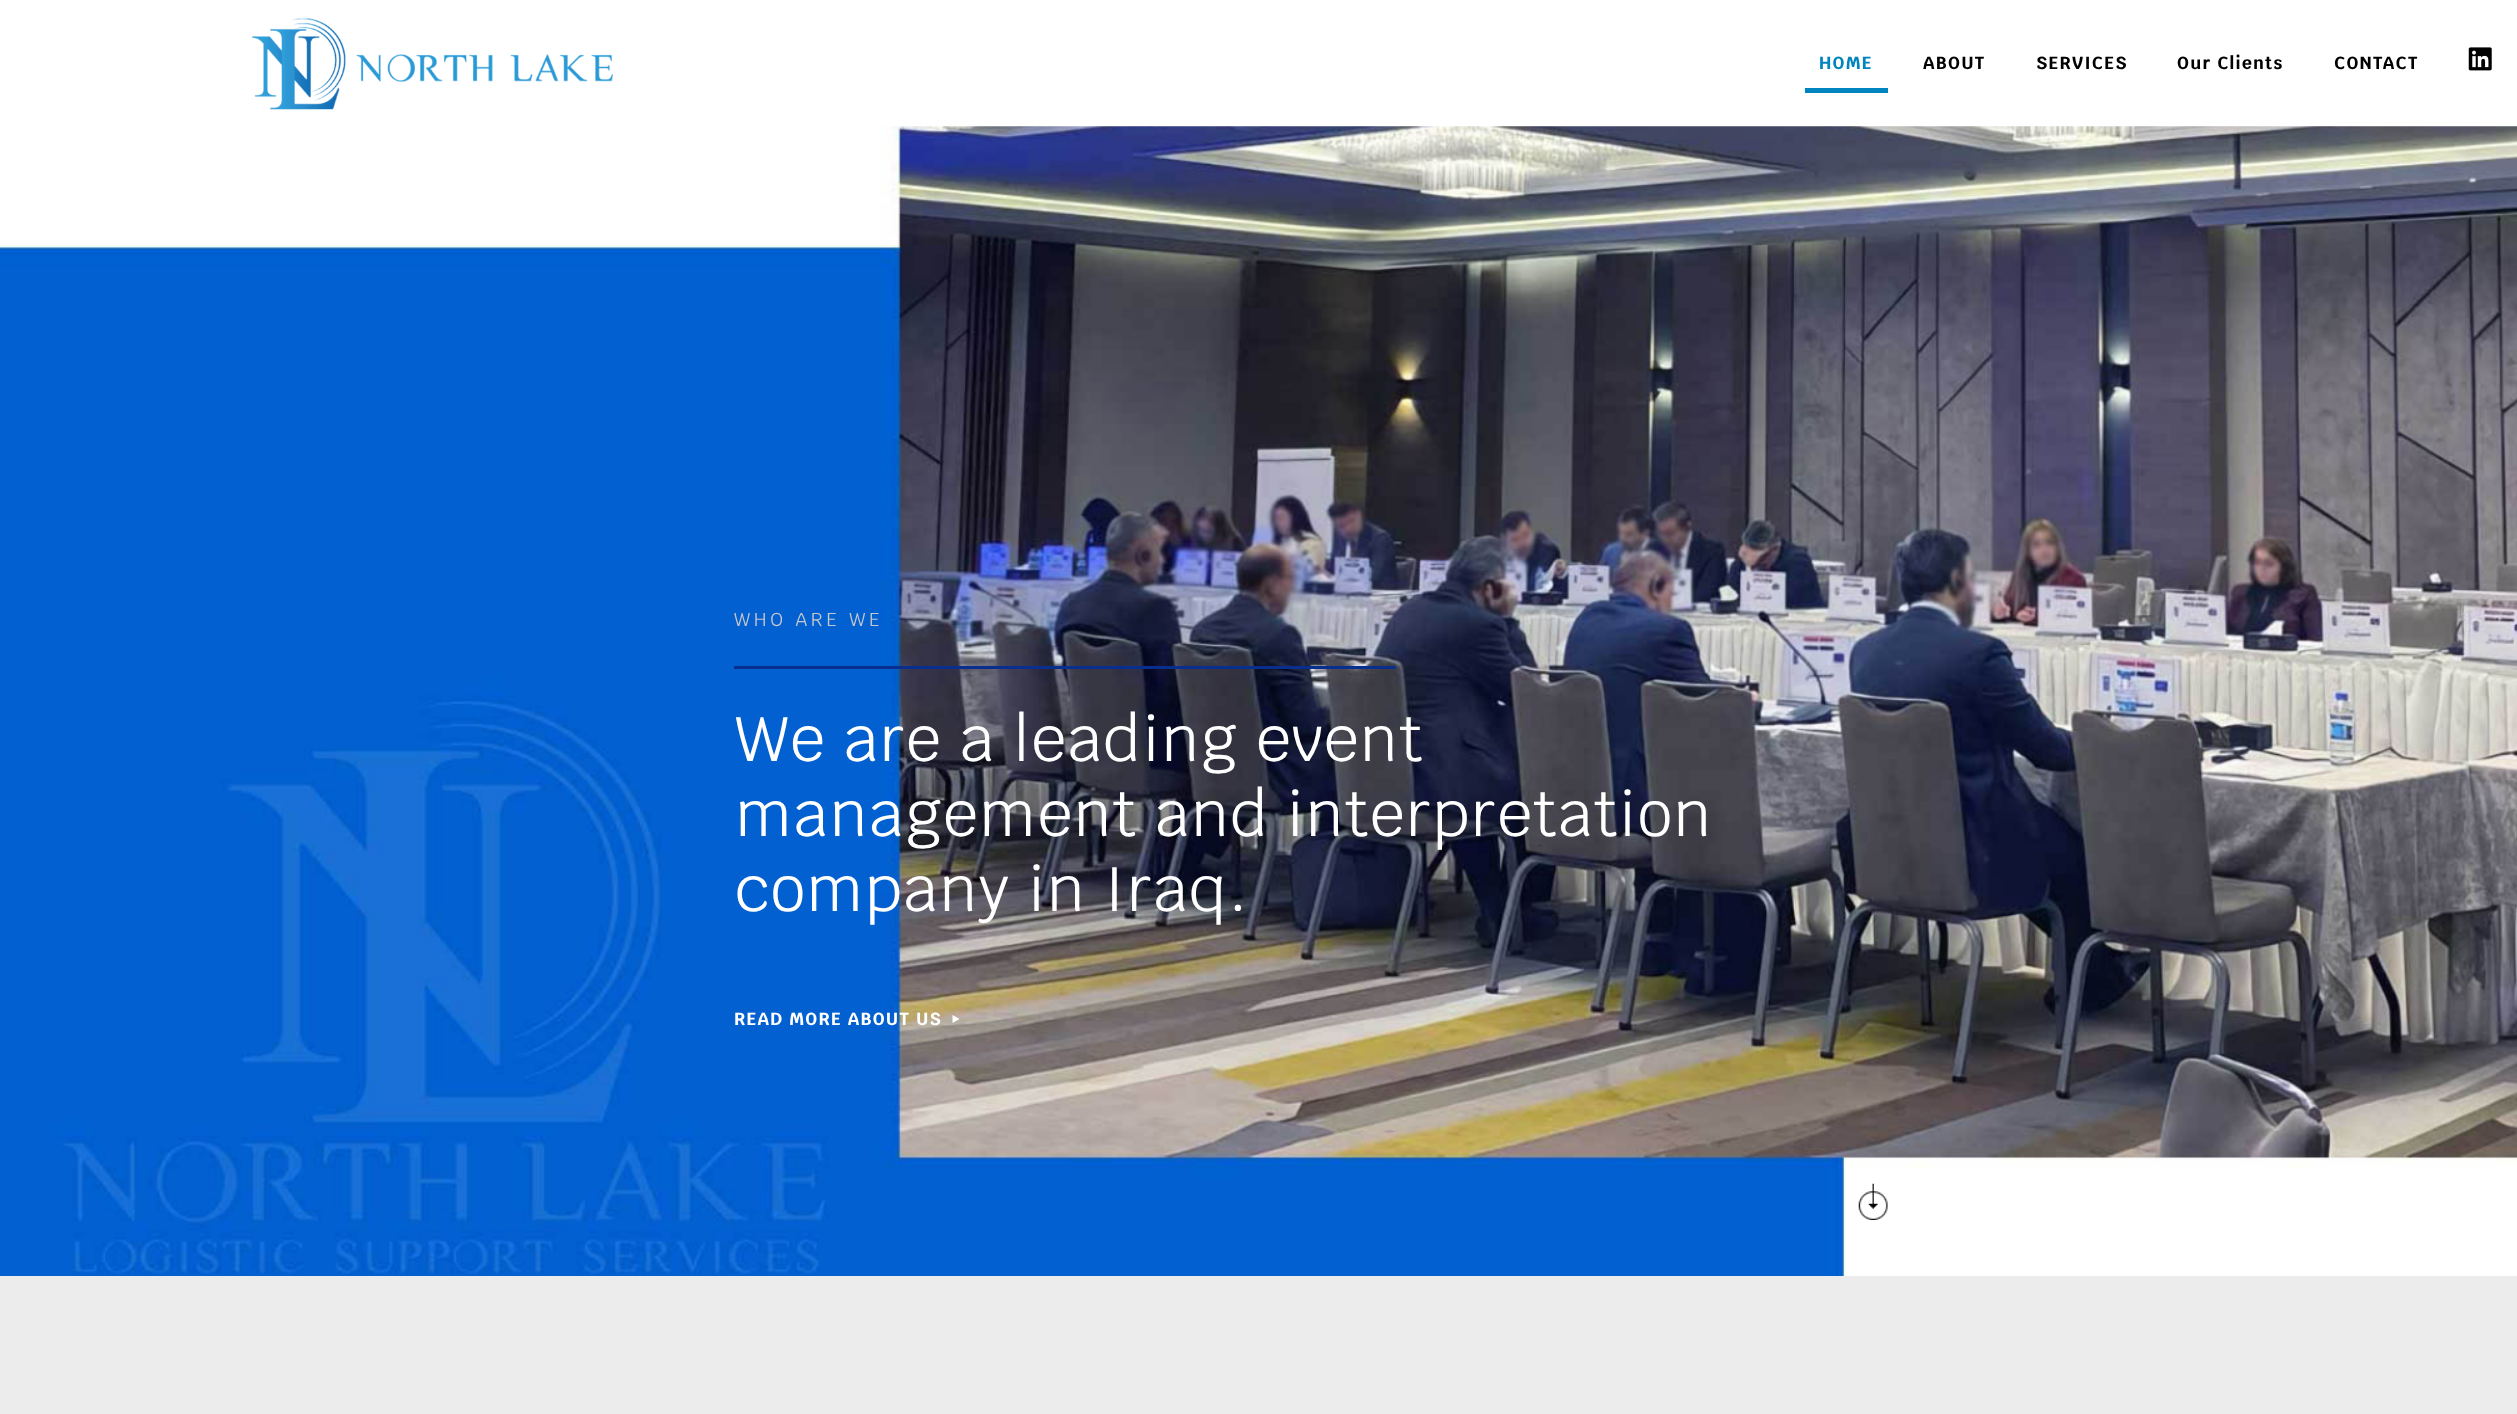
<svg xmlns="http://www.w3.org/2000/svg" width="2517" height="1414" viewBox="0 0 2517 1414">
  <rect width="100%" height="100%" fill="rgb(255,255,255)"/>
  <image x="252" y="17" width="361" height="93" href="pic1.png"/>
  <text x="1819" y="69" font-family="Krub" font-size="17.5" font-weight="bold" letter-spacing="1.25" fill="rgb(0,132,191)">HOME</text>
  <rect x="1805" y="88" width="83" height="5" fill="rgb(0,132,191)"/>
  <g font-family="Krub" font-size="17.5" font-weight="bold" letter-spacing="1.25" fill="rgb(0,0,0)">
    <text x="1923" y="69">ABOUT</text>
    <text x="2036" y="69">SERVICES</text>
    <text x="2177" y="69">Our Clients</text>
    <text x="2334" y="69">CONTACT</text>
  </g>
  <image x="2468" y="47" width="24" height="24" href="pic2.png"/>
  <image x="0" y="126" width="2517" height="1150" href="pic3.png"/>
  <text x="734" y="626" font-family="Krub" font-size="18.75" letter-spacing="3.75" fill="rgb(199,199,204)">WHO ARE WE</text>
  <rect x="734" y="666" width="662" height="3" fill="rgb(8,46,144)"/>
  <g font-family="Krub" font-size="62.5" letter-spacing="1.25" fill="rgb(255,255,255)">
    <text>
      <tspan x="735" y="761">We are a leading event</tspan>
      <tspan x="735" y="836">management and interpretation</tspan>
      <tspan x="735" y="911">company in Iraq.</tspan>
    </text>
  </g>
  <text x="734" y="1025" font-family="Krub" font-size="17.5" font-weight="bold" letter-spacing="1.25" fill="rgb(255,255,255)">READ MORE ABOUT US</text>
  <path d="M952.5 1015L959.5 1019L952.5 1023Z" fill="rgb(255,255,255)"/>
  <image x="1858" y="1183" width="30" height="37" href="pic4.png"/>
  <rect x="0" y="1276" width="2517" height="138" fill="rgb(236,236,236)"/>
</svg>
